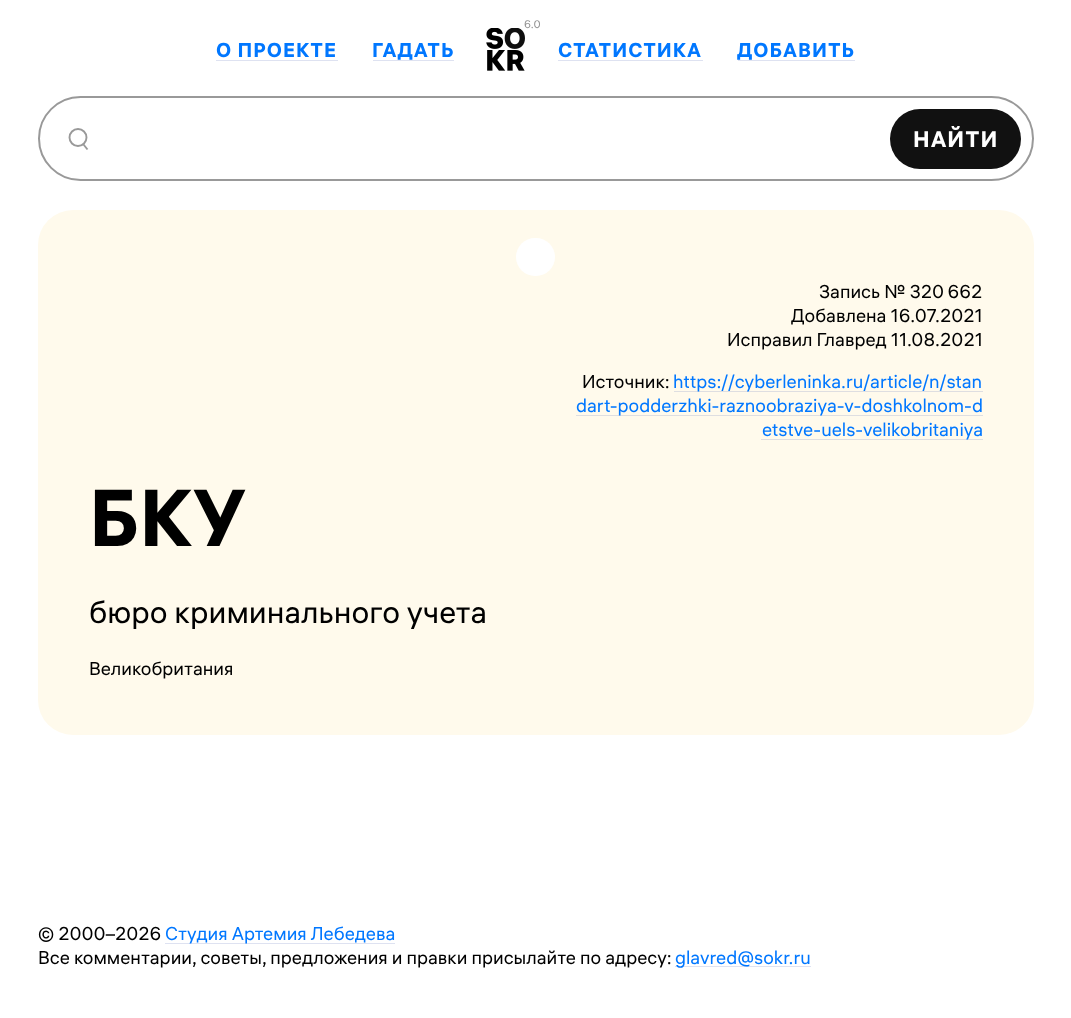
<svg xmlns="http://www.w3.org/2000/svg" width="1071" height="1018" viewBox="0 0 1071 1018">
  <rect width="100%" height="100%" fill="rgb(255,255,255)"/>
  <text x="524" y="28" font-family="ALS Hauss" font-size="11" fill="rgb(148,148,148)">6.0</text>
  <image x="486" y="28" width="39" height="43" href="pic1.png"/>
  <text x="216" y="57" font-family="ALS Hauss" font-size="20" font-weight="bold" letter-spacing="1" fill="rgb(0,119,255)">О ПРОЕКТЕ</text>
  <rect x="216" y="60" width="122" height="1" fill="rgb(222,226,241)"/>
  <text x="372" y="57" font-family="ALS Hauss" font-size="20" font-weight="bold" letter-spacing="1" fill="rgb(0,119,255)">ГАДАТЬ</text>
  <rect x="373" y="60" width="81" height="1" fill="rgb(222,226,241)"/>
  <text x="558" y="57" font-family="ALS Hauss" font-size="20" font-weight="bold" letter-spacing="1" fill="rgb(0,119,255)">СТАТИСТИКА</text>
  <rect x="558" y="60" width="145" height="1" fill="rgb(222,226,241)"/>
  <text x="737" y="57" font-family="ALS Hauss" font-size="20" font-weight="bold" letter-spacing="1" fill="rgb(0,119,255)">ДОБАВИТЬ</text>
  <rect x="738" y="60" width="117" height="1" fill="rgb(222,226,241)"/>
  <rect x="39" y="97" width="994" height="83" rx="41.5" fill="none" stroke="rgb(153,153,153)" stroke-width="2"/>
  <circle cx="78" cy="137.5" r="8.5" fill="none" stroke="rgb(153,153,153)" stroke-width="1.9"/>
  <path d="M83.5 144.5L87.5 149.5" fill="none" stroke="rgb(153,153,153)" stroke-width="1.9"/>
  <rect x="890" y="109" width="131" height="60" rx="30" fill="rgb(17,17,17)"/>
  <text x="913" y="147" font-family="ALS Hauss" font-size="22.5" font-weight="bold" letter-spacing="1" fill="rgb(255,255,255)">НАЙТИ</text>
  <rect x="38" y="210" width="996" height="525" rx="35" fill="rgb(255,250,236)"/>
  <rect x="516" y="238" width="39" height="38" rx="19" fill="rgb(255,255,255)"/>
  <g font-family="ALS Hauss" font-size="18.5" fill="rgb(0,0,0)">
    <text x="819" y="298">Запись № 320 662</text>
    <text x="791" y="322">Добавлена 16.07.2021</text>
    <text x="727" y="346">Исправил Главред 11.08.2021</text>
    <text x="582" y="388">Источник:</text>
  </g>
  <rect x="674" y="391" width="309" height="1" fill="rgb(222,222,225)"/>
  <text x="673" y="388" font-family="ALS Hauss" font-size="18.5" fill="rgb(0,119,255)">https://cyberleninka.ru/article/n/stan</text>
  <rect x="576" y="415" width="407" height="1" fill="rgb(222,222,225)"/>
  <text x="576" y="412" font-family="ALS Hauss" font-size="18.5" fill="rgb(0,119,255)">dart-podderzhki-raznoobraziya-v-doshkolnom-d</text>
  <rect x="761" y="439" width="222" height="1" fill="rgb(222,222,225)"/>
  <text x="762" y="436" font-family="ALS Hauss" font-size="18.5" fill="rgb(0,119,255)">etstve-uels-velikobritaniya</text>
  <text x="89" y="546" font-family="ALS Hauss" font-size="80" font-weight="bold" fill="rgb(0,0,0)">БКУ</text>
  <text x="89" y="623" font-family="ALS Hauss" font-size="31" fill="rgb(0,0,0)">бюро криминального учета</text>
  <g font-family="ALS Hauss" font-size="18.5" fill="rgb(0,0,0)">
    <text x="89" y="675">Великобритания</text>
    <text x="38" y="940">© 2000–2026</text>
  </g>
  <rect x="165" y="943" width="230" height="1" fill="rgb(222,226,241)"/>
  <text x="165" y="940" font-family="ALS Hauss" font-size="18.5" fill="rgb(0,119,255)">Студия Артемия Лебедева</text>
  <text x="38" y="964" font-family="ALS Hauss" font-size="18.5" fill="rgb(0,0,0)">Все комментарии, советы, предложения и правки присылайте по адресу:</text>
  <rect x="675" y="966" width="136" height="1" fill="rgb(222,226,241)"/>
  <text x="675" y="964" font-family="ALS Hauss" font-size="18.5" fill="rgb(0,119,255)">glavred@sokr.ru</text>
</svg>
